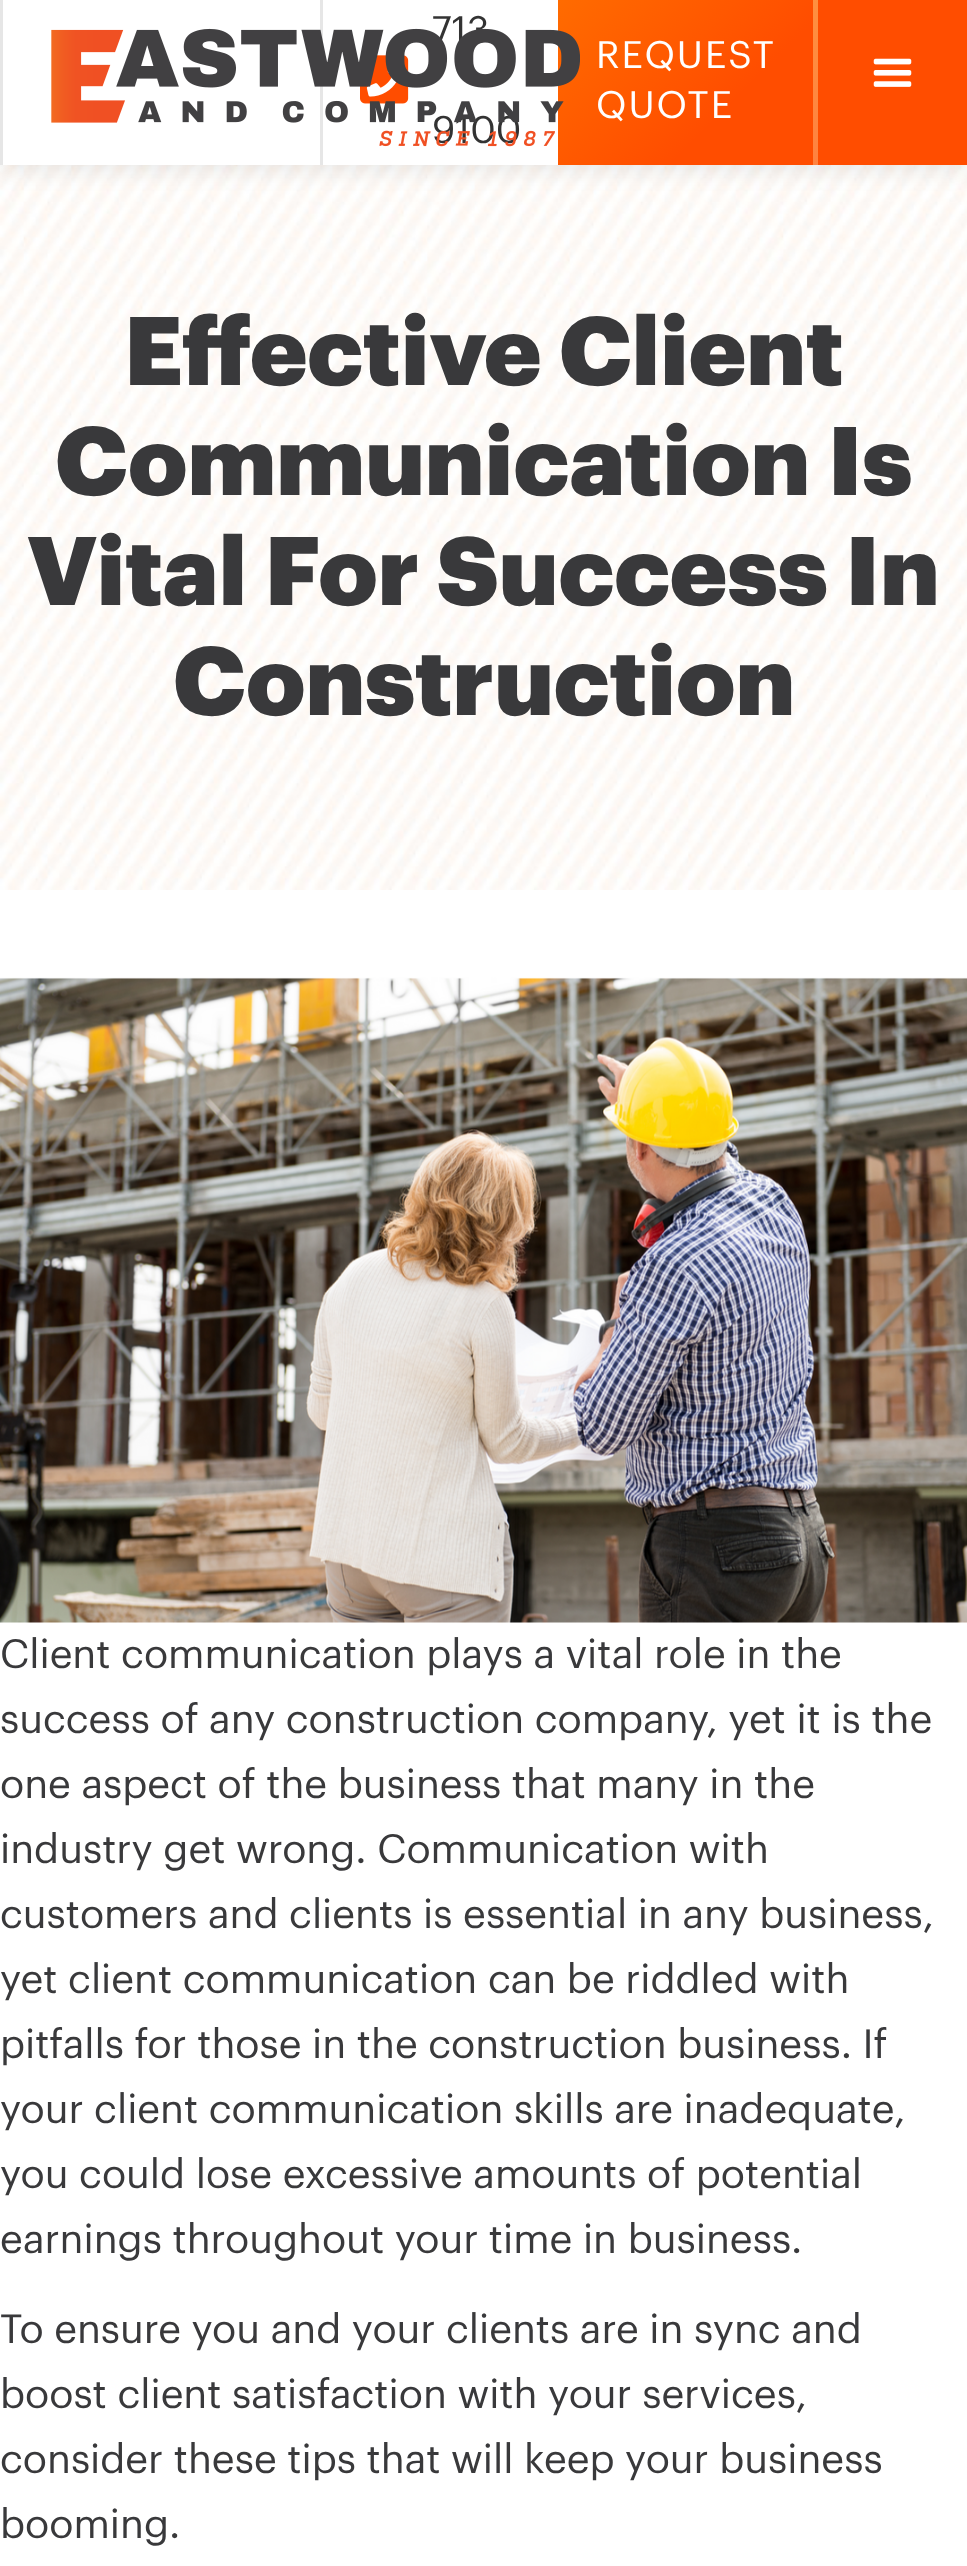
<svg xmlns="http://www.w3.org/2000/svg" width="967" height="2566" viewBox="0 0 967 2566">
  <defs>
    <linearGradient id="g1" gradientUnits="userSpaceOnUse" x1="580" y1="-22" x2="790" y2="188"><stop offset="0" stop-color="rgb(255,107,0)"/><stop offset="0.66" stop-color="rgb(255,77,0)"/></linearGradient>
    <linearGradient id="g2" gradientUnits="userSpaceOnUse" x1="835" y1="-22" x2="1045" y2="188"><stop offset="0" stop-color="rgb(255,107,0)"/><stop offset="0.66" stop-color="rgb(255,77,0)"/></linearGradient>
  </defs>
  <rect width="100%" height="100%" fill="rgb(255,255,255)"/>
  <image x="0" y="165" width="967" height="725" href="pic4.png"/>
  <rect x="0" y="3" width="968" height="165" fill="rgba(0,0,0,0.1)" filter="blur(12.5px)"/>
  <rect x="3" y="0" width="555" height="165" fill="rgb(255,255,255)"/>
  <rect x="0" y="0" width="3" height="165" fill="rgb(230,230,230)"/>
  <rect x="320" y="0" width="3" height="165" fill="rgb(230,230,230)"/>
  <image x="360" y="55" width="49" height="49" href="pic2.png"/>
  <g font-family="Graphik" font-size="37.5" fill="rgb(51,51,51)">
    <text x="432" y="43">713</text>
    <text x="432" y="143">9100</text>
  </g>
  <rect x="558" y="0" width="255" height="165" fill="url(#g1)"/>
  <image x="51" y="28" width="529" height="119" href="pic1.png"/>
  <rect x="813" y="0" width="5" height="165" fill="url(#g2)"/>
  <rect x="813" y="0" width="5" height="165" fill="rgba(255,255,255,0.25)"/>
  <g font-family="Graphik" font-size="37.5" letter-spacing="2" fill="rgb(255,255,255)">
    <text>
      <tspan x="596" y="68">REQUEST</tspan>
      <tspan x="596" y="118">QUOTE</tspan>
    </text>
  </g>
  <rect x="818" y="0" width="149" height="165" fill="rgb(255,77,0)"/>
  <image x="873" y="58" width="39" height="29" href="pic3.png"/>
  <g font-family="Graphik" font-size="95" font-weight="900" fill="rgb(57,57,59)">
    <text x="124" y="385">Effective Client</text>
    <text x="55" y="495">Communication Is</text>
    <text x="27" y="605">Vital For Success In</text>
    <text x="173" y="715">Construction</text>
  </g>
  <image x="0" y="977" width="967" height="646" href="pic5.png"/>
  <g font-family="Graphik" font-size="40" fill="rgb(57,57,59)">
    <text>
      <tspan x="0" y="1668">Client communication plays a vital role in the</tspan>
      <tspan x="0" y="1733">success of any construction company, yet it is the</tspan>
      <tspan x="0" y="1798">one aspect of the business that many in the</tspan>
      <tspan x="0" y="1863">industry get wrong. Communication with</tspan>
      <tspan x="0" y="1928">customers and clients is essential in any business,</tspan>
      <tspan x="0" y="1993">yet client communication can be riddled with</tspan>
      <tspan x="0" y="2058">pitfalls for those in the construction business. If</tspan>
      <tspan x="0" y="2123">your client communication skills are inadequate,</tspan>
      <tspan x="0" y="2188">you could lose excessive amounts of potential</tspan>
      <tspan x="0" y="2253">earnings throughout your time in business.</tspan>
    </text>
    <text>
      <tspan x="0" y="2343">To ensure you and your clients are in sync and</tspan>
      <tspan x="0" y="2408">boost client satisfaction with your services,</tspan>
      <tspan x="0" y="2473">consider these tips that will keep your business</tspan>
      <tspan x="0" y="2538">booming.</tspan>
    </text>
  </g>
</svg>
